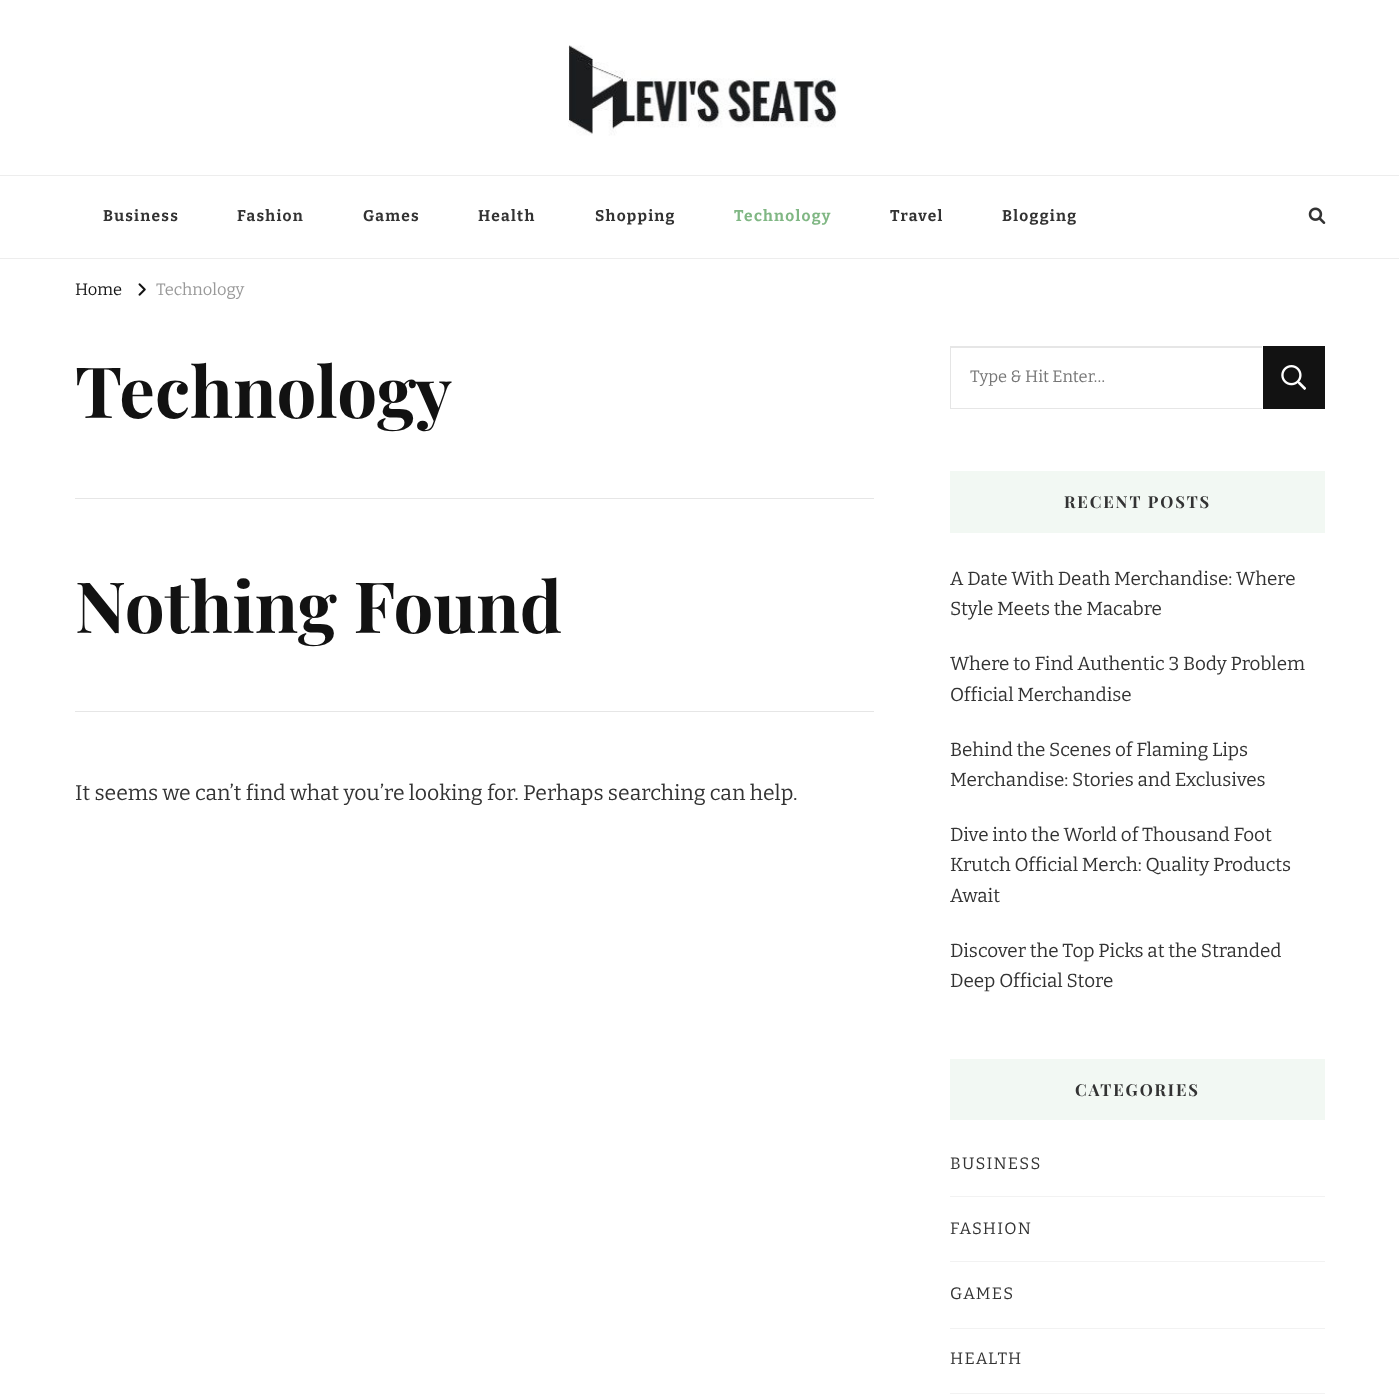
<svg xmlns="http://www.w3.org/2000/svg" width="1399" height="1399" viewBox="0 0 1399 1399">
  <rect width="100%" height="100%" fill="rgb(255,255,255)"/>
  <image x="568" y="45" width="270" height="91" href="pic1.png"/>
  <rect x="0" y="175" width="1399" height="1" fill="rgb(237,237,237)"/>
  <rect x="0" y="258" width="1399" height="1" fill="rgb(237,237,237)"/>
  <g font-family="Bitter" font-size="15.5" font-weight="bold" letter-spacing="1.25" fill="rgb(51,51,51)">
    <text x="103" y="221">Business</text>
    <text x="237" y="221">Fashion</text>
    <text x="363" y="221">Games</text>
    <text x="478" y="221">Health</text>
    <text x="595" y="221">Shopping</text>
  </g>
  <text x="734" y="221" font-family="Bitter" font-size="15.5" font-weight="bold" letter-spacing="1.25" fill="rgb(128,183,132)">Technology</text>
  <g font-family="Bitter" font-size="15.5" font-weight="bold" letter-spacing="1.25" fill="rgb(51,51,51)">
    <text x="890" y="221">Travel</text>
    <text x="1002" y="221">Blogging</text>
  </g>
  <image x="1308" y="207" width="18" height="17" href="pic2.png"/>
  <text x="75" y="295" font-family="Bitter" font-size="16.5" fill="rgb(18,18,18)">Home</text>
  <image x="138" y="283" width="8" height="13" href="pic3.png"/>
  <text x="156" y="295" font-family="Bitter" font-size="16.5" fill="rgb(153,153,153)">Technology</text>
  <rect x="75" y="498" width="799" height="1" fill="rgb(230,230,230)"/>
  <text x="75" y="418" font-family="Playfair Display" font-size="70.75" font-weight="bold" fill="rgb(18,18,18)">Technology</text>
  <rect x="75" y="711" width="799" height="1" fill="rgb(230,230,230)"/>
  <text x="75" y="633" font-family="Playfair Display" font-size="70.75" font-weight="bold" fill="rgb(18,18,18)">Nothing Found</text>
  <text x="75" y="800" font-family="Bitter" font-size="21.25" fill="rgb(51,51,51)">It seems we can’t find what you’re looking for. Perhaps searching can help.</text>
  <path d="M950 346H1262V348H951Z" fill="rgb(230,230,230)"/>
  <path d="M1262 409H950L951 408H1262Z" fill="rgb(230,230,230)"/>
  <path d="M950 409V346L951 348V408Z" fill="rgba(0,0,0,0.1)"/>
  <text x="970" y="382" font-family="Bitter" font-size="16.5" fill="rgb(117,117,117)">Type &amp; Hit Enter…</text>
  <rect x="1263" y="346" width="62" height="63" fill="rgb(18,18,18)"/>
  <image x="1281" y="365" width="25" height="25" href="pic4.png"/>
  <rect x="950" y="471" width="375" height="62" fill="rgb(242,248,243)"/>
  <text x="1064" y="508" font-family="Playfair Display" font-size="16.5" font-weight="bold" letter-spacing="1.9" fill="rgb(51,51,51)">RECENT POSTS</text>
  <g font-family="Bitter" font-size="18.9" fill="rgb(51,51,51)">
    <text>
      <tspan x="950" y="585">A Date With Death Merchandise: Where</tspan>
      <tspan x="950" y="615">Style Meets the Macabre</tspan>
    </text>
    <text>
      <tspan x="950" y="670">Where to Find Authentic 3 Body Problem</tspan>
      <tspan x="950" y="701">Official Merchandise</tspan>
    </text>
    <text>
      <tspan x="950" y="756">Behind the Scenes of Flaming Lips</tspan>
      <tspan x="950" y="786">Merchandise: Stories and Exclusives</tspan>
    </text>
    <text>
      <tspan x="950" y="841">Dive into the World of Thousand Foot</tspan>
      <tspan x="950" y="871">Krutch Official Merch: Quality Products</tspan>
      <tspan x="950" y="902">Await</tspan>
    </text>
    <text>
      <tspan x="950" y="957">Discover the Top Picks at the Stranded</tspan>
      <tspan x="950" y="987">Deep Official Store</tspan>
    </text>
  </g>
  <rect x="950" y="1059" width="375" height="61" fill="rgb(242,248,243)"/>
  <text x="1075" y="1096" font-family="Playfair Display" font-size="16.5" font-weight="bold" letter-spacing="1.9" fill="rgb(51,51,51)">CATEGORIES</text>
  <rect x="950" y="1196" width="375" height="1" fill="rgb(242,242,242)"/>
  <text x="950" y="1169" font-family="Bitter" font-size="16.5" letter-spacing="1.25" fill="rgb(51,51,51)">BUSINESS</text>
  <rect x="950" y="1261" width="375" height="1" fill="rgb(242,242,242)"/>
  <text x="950" y="1234" font-family="Bitter" font-size="16.5" letter-spacing="1.25" fill="rgb(51,51,51)">FASHION</text>
  <rect x="950" y="1328" width="375" height="1" fill="rgb(242,242,242)"/>
  <text x="950" y="1299" font-family="Bitter" font-size="16.5" letter-spacing="1.25" fill="rgb(51,51,51)">GAMES</text>
  <rect x="950" y="1393" width="375" height="1" fill="rgb(242,242,242)"/>
  <text x="950" y="1364" font-family="Bitter" font-size="16.5" letter-spacing="1.25" fill="rgb(51,51,51)">HEALTH</text>
</svg>
